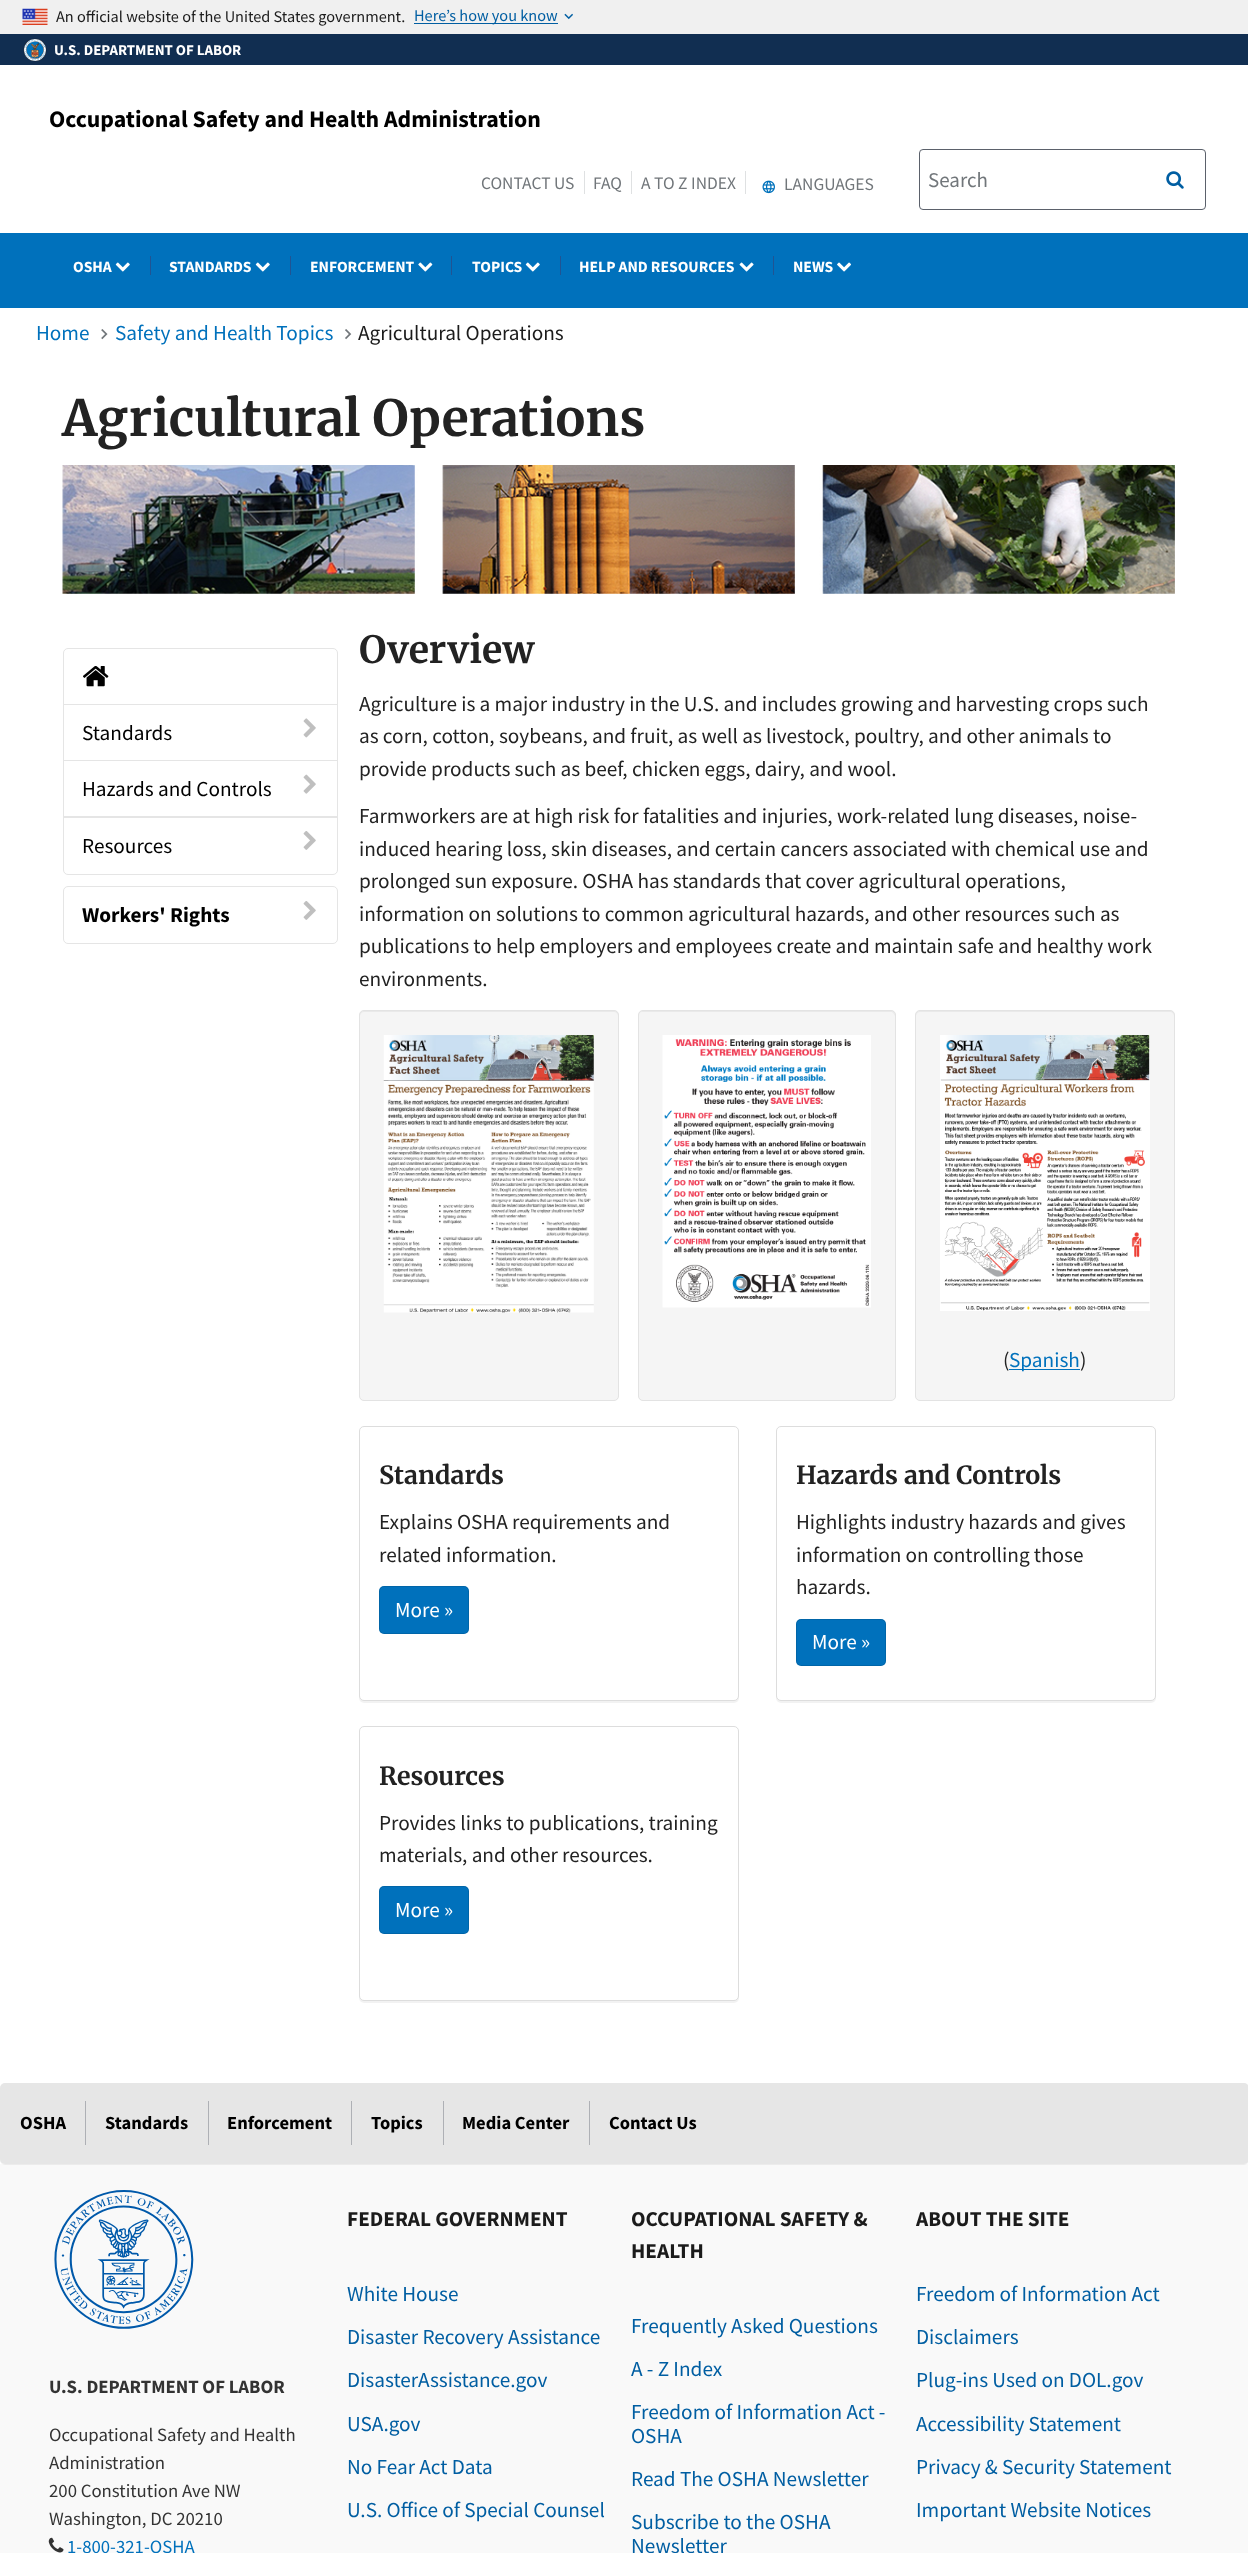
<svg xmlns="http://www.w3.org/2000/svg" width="1248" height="2553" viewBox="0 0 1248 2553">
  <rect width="100%" height="100%" fill="rgb(255,255,255)"/>
  <rect x="0" y="0" width="1248" height="34" fill="rgb(240,240,240)"/>
  <image x="22" y="8" width="26" height="17" href="pic1.png"/>
  <text x="56" y="22" font-family="Source Sans Pro" font-size="16.25" fill="rgb(27,27,27)">An official website of the United States government.</text>
  <rect x="414" y="23" width="144" height="1" fill="rgb(0,94,162)"/>
  <text x="414" y="21" font-family="'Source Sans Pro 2'" font-size="16.25" fill="rgb(0,94,162)">Here’s how you know</text>
  <image x="564" y="13" width="9" height="7" href="pic2.png"/>
  <rect x="0" y="34" width="1248" height="31" fill="rgb(17,46,81)"/>
  <image x="23" y="38" width="24" height="24" href="pic3.png"/>
  <text x="54" y="55" font-family="Source Sans Pro" font-size="14.9" font-weight="bold" fill="rgb(255,255,255)">U.S. DEPARTMENT OF LABOR</text>
  <text x="49" y="127" font-family="'Source Sans Pro 2'" font-size="23.8" font-weight="bold" fill="rgb(0,0,0)">Occupational Safety and Health Administration</text>
  <text x="481" y="189" font-family="'Source Sans Pro 2'" font-size="17.5" fill="rgb(113,118,122)">CONTACT US</text>
  <rect x="584" y="171" width="1" height="23" fill="rgb(223,225,226)"/>
  <text x="593" y="189" font-family="'Source Sans Pro 2'" font-size="17.5" fill="rgb(113,118,122)">FAQ</text>
  <rect x="631" y="171" width="1" height="23" fill="rgb(223,225,226)"/>
  <text x="641" y="189" font-family="'Source Sans Pro 2'" font-size="17.5" fill="rgb(113,118,122)">A TO Z INDEX</text>
  <rect x="745" y="171" width="1" height="23" fill="rgb(223,225,226)"/>
  <image x="762" y="180" width="13" height="14" href="pic4.png"/>
  <text x="784" y="190" font-family="'Source Sans Pro 2'" font-size="17.5" fill="rgb(113,118,122)">LANGUAGES</text>
  <rect x="919.5" y="149.5" width="286" height="60" rx="3.5" fill="none" stroke="rgb(91,97,107)"/>
  <text x="928" y="187" font-family="'Source Sans Pro 2'" font-size="21" fill="rgb(113,118,122)">Search</text>
  <image x="1166" y="171" width="18" height="18" href="pic5.png"/>
  <rect x="0" y="233" width="1248" height="75" fill="rgb(0,113,188)"/>
  <text x="73" y="272" font-family="Source Sans Pro" font-size="15.6" font-weight="bold" fill="rgb(255,255,255)">OSHA</text>
  <image x="115" y="262" width="15" height="10" href="pic6.png"/>
  <rect x="150" y="256" width="1" height="19" fill="rgb(32,84,147)"/>
  <text x="169" y="272" font-family="Source Sans Pro" font-size="15.6" font-weight="bold" fill="rgb(255,255,255)">STANDARDS</text>
  <image x="255" y="262" width="15" height="10" href="pic6.png"/>
  <rect x="290" y="256" width="1" height="19" fill="rgb(32,84,147)"/>
  <text x="310" y="272" font-family="Source Sans Pro" font-size="15.6" font-weight="bold" fill="rgb(255,255,255)">ENFORCEMENT</text>
  <image x="418" y="262" width="15" height="10" href="pic7.png"/>
  <rect x="451" y="256" width="1" height="19" fill="rgb(32,84,147)"/>
  <text x="472" y="272" font-family="Source Sans Pro" font-size="15.6" font-weight="bold" fill="rgb(255,255,255)">TOPICS</text>
  <image x="525" y="262" width="15" height="10" href="pic6.png"/>
  <rect x="560" y="256" width="1" height="19" fill="rgb(32,84,147)"/>
  <text x="579" y="272" font-family="Source Sans Pro" font-size="15.6" font-weight="bold" fill="rgb(255,255,255)">HELP AND RESOURCES</text>
  <image x="739" y="262" width="15" height="10" href="pic8.png"/>
  <rect x="773" y="256" width="1" height="19" fill="rgb(32,84,147)"/>
  <text x="793" y="272" font-family="Source Sans Pro" font-size="15.6" font-weight="bold" fill="rgb(255,255,255)">NEWS</text>
  <image x="837" y="262" width="14" height="10" href="pic9.png"/>
  <text x="36" y="340" font-family="'Source Sans Pro 2'" font-size="21.25" fill="rgb(0,113,188)">Home</text>
  <image x="101" y="329" width="7" height="11" href="pic10.png"/>
  <text x="115" y="340" font-family="'Source Sans Pro 2'" font-size="21.25" fill="rgb(0,113,188)">Safety and Health Topics</text>
  <image x="345" y="329" width="7" height="11" href="pic11.png"/>
  <text x="358" y="340" font-family="'Source Sans Pro 2'" font-size="21.25" fill="rgb(27,27,27)">Agricultural Operations</text>
  <text x="62" y="436" font-family="Merriweather" font-size="49.9" font-weight="bold" fill="rgb(34,34,34)">Agricultural Operations</text>
  <image x="62" y="465" width="1113" height="129" href="pic12.png"/>
  <path d="M68 648.5H333C335.5 648.5 337.5 650.5 337.5 653V704.5H63.5V653C63.5 650.5 65.5 648.5 68 648.5Z" fill="none" stroke="rgb(229,229,229)"/>
  <image x="83" y="666" width="26" height="21" href="pic13.png"/>
  <rect x="63.5" y="704.5" width="274" height="56" fill="none" stroke="rgb(229,229,229)"/>
  <text x="82" y="740" font-family="'Source Sans Pro 2'" font-size="21.25" fill="rgb(0,0,0)">Standards</text>
  <image x="303" y="718" width="13" height="20" href="pic14.png"/>
  <rect x="63.5" y="760.5" width="274" height="57" fill="none" stroke="rgb(229,229,229)"/>
  <text x="82" y="796" font-family="'Source Sans Pro 2'" font-size="21.25" fill="rgb(0,0,0)">Hazards and Controls</text>
  <image x="303" y="774" width="13" height="20" href="pic15.png"/>
  <path d="M63.5 816.5H337.5V870C337.5 872.5 335.5 874.5 333 874.5H68C65.5 874.5 63.5 872.5 63.5 870Z" fill="none" stroke="rgb(229,229,229)"/>
  <text x="82" y="853" font-family="'Source Sans Pro 2'" font-size="21.25" fill="rgb(0,0,0)">Resources</text>
  <image x="303" y="831" width="13" height="19" href="pic16.png"/>
  <rect x="63.5" y="886.5" width="274" height="57" rx="4.5" fill="none" stroke="rgb(229,229,229)"/>
  <text x="82" y="922" font-family="Source Sans Pro" font-size="21.25" font-weight="bold" fill="rgb(0,0,0)">Workers' Rights</text>
  <image x="303" y="901" width="13" height="19" href="pic16.png"/>
  <text x="359" y="663" font-family="Merriweather" font-size="37.5" font-weight="bold" fill="rgb(34,34,34)">Overview</text>
  <g font-family="'Source Sans Pro 2'" font-size="21.25" fill="rgb(34,34,34)">
    <text>
      <tspan x="359" y="711">Agriculture is a major industry in the U.S. and includes growing and harvesting crops such</tspan>
      <tspan x="359" y="743">as corn, cotton, soybeans, and fruit, as well as livestock, poultry, and other animals to</tspan>
      <tspan x="359" y="776">provide products such as beef, chicken eggs, dairy, and wool.</tspan>
    </text>
    <text>
      <tspan x="359" y="823">Farmworkers are at high risk for fatalities and injuries, work-related lung diseases, noise-</tspan>
      <tspan x="359" y="856">induced hearing loss, skin diseases, and certain cancers associated with chemical use and</tspan>
      <tspan x="359" y="888">prolonged sun exposure. OSHA has standards that cover agricultural operations,</tspan>
      <tspan x="359" y="921">information on solutions to common agricultural hazards, and other resources such as</tspan>
      <tspan x="359" y="953">publications to help employers and employees create and maintain safe and healthy work</tspan>
      <tspan x="359" y="986">environments.</tspan>
    </text>
  </g>
  <rect x="359" y="1010" width="260" height="391" rx="5" fill="rgb(245,245,245)"/>
  <path d="M364 1012H614C616 1012 618 1014 618 1016V1015C618 1013 616 1011 614 1011H364C362 1011 360 1013 360 1015V1016C360 1014 362 1012 364 1012Z" fill="rgb(233,233,233)"/>
  <rect x="359.5" y="1010.5" width="259" height="390" rx="4.5" fill="none" stroke="rgb(227,227,227)"/>
  <image x="383" y="1035" width="211" height="278" href="pic17.png"/>
  <rect x="638" y="1010" width="258" height="391" rx="5" fill="rgb(245,245,245)"/>
  <path d="M642 1012H892L894 1014L895 1016V1015C895 1013 893 1011 891 1011H643C641 1011 639 1013 639 1015V1016C639 1014 640 1012 642 1012Z" fill="rgb(233,233,233)"/>
  <rect x="638.5" y="1010.5" width="257" height="390" rx="4.5" fill="none" stroke="rgb(227,227,227)"/>
  <image x="662" y="1035" width="209" height="273" href="pic18.png"/>
  <rect x="915" y="1010" width="260" height="391" rx="5" fill="rgb(245,245,245)"/>
  <path d="M920 1012H1170C1172 1012 1174 1014 1174 1016V1015C1174 1013 1172 1011 1170 1011H920C918 1011 916 1013 916 1015V1016C916 1014 918 1012 920 1012Z" fill="rgb(233,233,233)"/>
  <rect x="915.5" y="1010.5" width="259" height="390" rx="4.5" fill="none" stroke="rgb(227,227,227)"/>
  <image x="940" y="1035" width="210" height="276" href="pic19.png"/>
  <text x="1003" y="1367" font-family="'Source Sans Pro 2'" font-size="21.25" fill="rgb(34,34,34)">(</text>
  <rect x="1009" y="1369" width="71" height="1" fill="rgb(0,113,188)"/>
  <text x="1009" y="1367" font-family="'Source Sans Pro 2'" font-size="21.25" fill="rgb(0,113,188)">Spanish</text>
  <text x="1080" y="1367" font-family="'Source Sans Pro 2'" font-size="21.25" fill="rgb(34,34,34)">)</text>
  <rect x="359" y="1428" width="380" height="275" rx="5" fill="rgba(0,0,0,0.05)" filter="blur(0.5px)"/>
  <rect x="359.5" y="1426.5" width="379" height="274" rx="4.5" fill="rgb(255,255,255)" stroke="rgb(221,221,221)"/>
  <text x="379" y="1484" font-family="Merriweather" font-size="25" font-weight="bold" fill="rgb(34,34,34)">Standards</text>
  <g font-family="'Source Sans Pro 2'" font-size="21.25" fill="rgb(34,34,34)">
    <text>
      <tspan x="379" y="1529">Explains OSHA requirements and</tspan>
      <tspan x="379" y="1562">related information.</tspan>
    </text>
  </g>
  <rect x="379" y="1586" width="90" height="48" rx="5" fill="rgb(0,113,188)"/>
  <rect x="379.5" y="1586.5" width="89" height="47" rx="4.5" fill="none" stroke="rgba(0,0,0,0.1)"/>
  <text x="395" y="1617" font-family="'Source Sans Pro 2'" font-size="21.25" fill="rgb(255,255,255)">More »</text>
  <rect x="776" y="1428" width="380" height="275" rx="5" fill="rgba(0,0,0,0.05)" filter="blur(0.5px)"/>
  <rect x="776.5" y="1426.5" width="379" height="274" rx="4.5" fill="rgb(255,255,255)" stroke="rgb(221,221,221)"/>
  <text x="796" y="1484" font-family="Merriweather" font-size="25" font-weight="bold" fill="rgb(34,34,34)">Hazards and Controls</text>
  <g font-family="'Source Sans Pro 2'" font-size="21.25" fill="rgb(34,34,34)">
    <text>
      <tspan x="796" y="1529">Highlights industry hazards and gives</tspan>
      <tspan x="796" y="1562">information on controlling those</tspan>
      <tspan x="796" y="1594">hazards.</tspan>
    </text>
  </g>
  <rect x="796" y="1619" width="90" height="47" rx="5" fill="rgb(0,113,188)"/>
  <rect x="796.5" y="1619.5" width="89" height="46" rx="4.5" fill="none" stroke="rgba(0,0,0,0.1)"/>
  <text x="812" y="1649" font-family="'Source Sans Pro 2'" font-size="21.25" fill="rgb(255,255,255)">More »</text>
  <rect x="359" y="1728" width="380" height="275" rx="5" fill="rgba(0,0,0,0.05)" filter="blur(0.5px)"/>
  <rect x="359.5" y="1726.5" width="379" height="274" rx="4.5" fill="rgb(255,255,255)" stroke="rgb(221,221,221)"/>
  <text x="379" y="1785" font-family="Merriweather" font-size="25" font-weight="bold" fill="rgb(34,34,34)">Resources</text>
  <g font-family="'Source Sans Pro 2'" font-size="21.25" fill="rgb(34,34,34)">
    <text>
      <tspan x="379" y="1830">Provides links to publications, training</tspan>
      <tspan x="379" y="1862">materials, and other resources.</tspan>
    </text>
  </g>
  <rect x="379" y="1886" width="90" height="48" rx="5" fill="rgb(0,113,188)"/>
  <rect x="379.5" y="1886.5" width="89" height="47" rx="4.5" fill="none" stroke="rgba(0,0,0,0.1)"/>
  <text x="395" y="1917" font-family="'Source Sans Pro 2'" font-size="21.25" fill="rgb(255,255,255)">More »</text>
  <rect x="0" y="2164" width="1248" height="389" fill="rgb(249,249,249)"/>
  <rect x="0" y="2084" width="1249" height="81" rx="5" fill="rgba(0,0,0,0.05)" filter="blur(0.5px)"/>
  <rect x="0" y="2083" width="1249" height="81" rx="5" fill="rgb(230,230,230)"/>
  <text x="20" y="2129" font-family="'Source Sans Pro 2'" font-size="18.5" font-weight="bold" fill="rgb(0,0,0)">OSHA</text>
  <rect x="85" y="2101" width="1" height="44" fill="rgb(174,176,181)"/>
  <text x="105" y="2129" font-family="'Source Sans Pro 2'" font-size="18.5" font-weight="bold" fill="rgb(0,0,0)">Standards</text>
  <rect x="208" y="2101" width="1" height="44" fill="rgb(174,176,181)"/>
  <text x="227" y="2129" font-family="'Source Sans Pro 2'" font-size="18.5" font-weight="bold" fill="rgb(0,0,0)">Enforcement</text>
  <rect x="351" y="2101" width="1" height="44" fill="rgb(174,176,181)"/>
  <text x="371" y="2129" font-family="'Source Sans Pro 2'" font-size="18.5" font-weight="bold" fill="rgb(0,0,0)">Topics</text>
  <rect x="443" y="2101" width="1" height="44" fill="rgb(174,176,181)"/>
  <text x="462" y="2129" font-family="'Source Sans Pro 2'" font-size="18.5" font-weight="bold" fill="rgb(0,0,0)">Media Center</text>
  <rect x="589" y="2101" width="1" height="44" fill="rgb(174,176,181)"/>
  <text x="609" y="2129" font-family="'Source Sans Pro 2'" font-size="18.5" font-weight="bold" fill="rgb(0,0,0)">Contact Us</text>
  <image x="54" y="2190" width="140" height="139" href="pic20.png"/>
  <text x="49" y="2393" font-family="Source Sans Pro" font-size="18.75" font-weight="bold" fill="rgb(51,51,51)">U.S. DEPARTMENT OF LABOR</text>
  <g font-family="Source Sans Pro" font-size="18.75" fill="rgb(51,51,51)">
    <text>
      <tspan x="49" y="2441">Occupational Safety and Health</tspan>
      <tspan x="49" y="2469">Administration</tspan>
      <tspan x="49" y="2497">200 Constitution Ave NW</tspan>
      <tspan x="49" y="2525">Washington, DC 20210</tspan>
    </text>
  </g>
  <image x="48" y="2537" width="16" height="16" href="pic21.png"/>
  <text x="67" y="2553" font-family="Source Sans Pro" font-size="18.75" fill="rgb(0,113,188)">1-800-321-OSHA</text>
  <text x="347" y="2226" font-family="Source Sans Pro" font-size="21.25" font-weight="bold" fill="rgb(27,27,27)">FEDERAL GOVERNMENT</text>
  <g font-family="Source Sans Pro" font-size="21.25" fill="rgb(0,94,162)">
    <text x="347" y="2301">White House</text>
    <text x="347" y="2344">Disaster Recovery Assistance</text>
    <text x="347" y="2387">DisasterAssistance.gov</text>
    <text x="347" y="2431">USA.gov</text>
    <text x="347" y="2474">No Fear Act Data</text>
    <text x="347" y="2517">U.S. Office of Special Counsel</text>
  </g>
  <g font-family="Source Sans Pro" font-size="21.25" font-weight="bold" fill="rgb(27,27,27)">
    <text>
      <tspan x="631" y="2226">OCCUPATIONAL SAFETY &amp;</tspan>
      <tspan x="631" y="2258">HEALTH</tspan>
    </text>
  </g>
  <g font-family="Source Sans Pro" font-size="21.25" fill="rgb(0,94,162)">
    <text x="631" y="2333">Frequently Asked Questions</text>
    <text x="631" y="2376">A - Z Index</text>
    <text>
      <tspan x="631" y="2419">Freedom of Information Act -</tspan>
      <tspan x="631" y="2443">OSHA</tspan>
    </text>
    <text x="631" y="2486">Read The OSHA Newsletter</text>
    <text>
      <tspan x="631" y="2529">Subscribe to the OSHA</tspan>
      <tspan x="631" y="2553">Newsletter</tspan>
    </text>
  </g>
  <text x="916" y="2226" font-family="Source Sans Pro" font-size="21.25" font-weight="bold" fill="rgb(27,27,27)">ABOUT THE SITE</text>
  <g font-family="Source Sans Pro" font-size="21.25" fill="rgb(0,94,162)">
    <text x="916" y="2301">Freedom of Information Act</text>
    <text x="916" y="2344">Disclaimers</text>
    <text x="916" y="2387">Plug-ins Used on DOL.gov</text>
    <text x="916" y="2431">Accessibility Statement</text>
    <text x="916" y="2474">Privacy &amp; Security Statement</text>
    <text x="916" y="2517">Important Website Notices</text>
  </g>
</svg>
